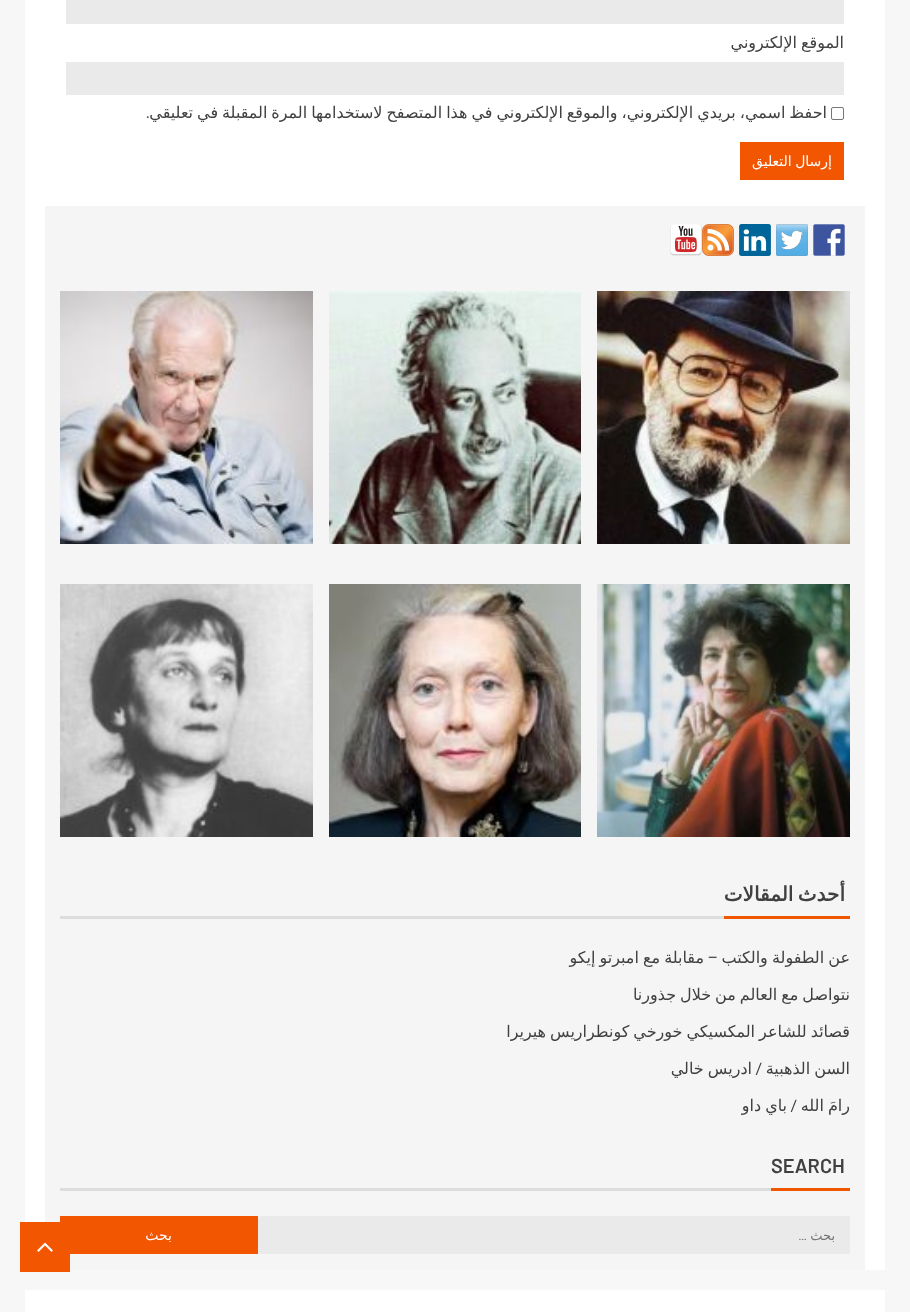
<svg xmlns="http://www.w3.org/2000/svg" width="910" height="1312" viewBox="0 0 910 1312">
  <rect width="100%" height="100%" fill="rgb(247,247,247)"/>
  <rect x="25" y="0" width="860" height="1270" fill="rgb(255,255,255)"/>
  <rect x="66" y="0" width="778" height="24" fill="rgb(234,234,234)"/>
  <text x="844" y="48" word-spacing="-1.1" font-family="DejaVu Sans" font-size="16" direction="rtl" fill="rgb(64,64,64)">الموقع الإلكتروني</text>
  <rect x="66" y="62" width="778" height="33" fill="rgb(234,234,234)"/>
  <rect x="831.5" y="107.5" width="12" height="12" rx="1.5" fill="none" stroke="rgb(118,118,118)"/>
  <text x="827" y="118" word-spacing="-1.1" font-family="DejaVu Sans" font-size="16" direction="rtl" fill="rgb(64,64,64)">احفظ اسمي، بريدي الإلكتروني، والموقع الإلكتروني في هذا المتصفح لاستخدامها المرة المقبلة في تعليقي</text>
  <text x="150" y="118" font-family="Roboto" font-size="16" direction="rtl" fill="rgb(64,64,64)">.</text>
  <rect x="740" y="142" width="104" height="38" fill="rgb(242,86,0)"/>
  <text x="832" y="166" word-spacing="-1" font-family="DejaVu Sans" font-size="14" direction="rtl" fill="rgb(255,255,255)">إرسال التعليق</text>
  <rect x="45" y="206" width="820" height="1064" fill="rgb(245,245,245)"/>
  <image x="813" y="224" width="32" height="32" href="pic1.png"/>
  <image x="776" y="224" width="32" height="32" href="pic2.png"/>
  <image x="739" y="224" width="32" height="32" href="pic3.png"/>
  <image x="702" y="224" width="32" height="32" href="pic4.png"/>
  <image x="670" y="224" width="32" height="32" href="pic5.png"/>
  <image x="597" y="291" width="253" height="253" href="pic6.png"/>
  <image x="329" y="291" width="252" height="253" href="pic7.png"/>
  <image x="60" y="291" width="253" height="253" href="pic8.png"/>
  <image x="597" y="584" width="253" height="253" href="pic9.png"/>
  <image x="329" y="584" width="252" height="253" href="pic10.png"/>
  <image x="60" y="584" width="253" height="253" href="pic11.png"/>
  <text x="845" y="901" word-spacing="-2" font-family="DejaVu Sans" font-size="20" font-weight="bold" direction="rtl" fill="rgb(64,64,64)">أحدث المقالات</text>
  <rect x="724" y="916" width="126" height="3" fill="rgb(242,86,0)"/>
  <rect x="60" y="916" width="664" height="3" fill="rgb(221,221,221)"/>
  <text x="850" y="963" word-spacing="-1" font-family="DejaVu Sans" font-size="16" direction="rtl" fill="rgb(64,64,64)">عن الطفولة والكتب</text>
  <text x="718" y="963" font-family="Roboto" font-size="16" direction="rtl" fill="rgb(64,64,64)">–</text>
  <g font-family="DejaVu Sans" font-size="16" direction="rtl" fill="rgb(64,64,64)">
    <text x="704" y="963" word-spacing="-1">مقابلة مع امبرتو إيكو</text>
    <text x="850" y="1000" word-spacing="-1.1">نتواصل مع العالم من خلال جذورنا</text>
    <text x="850" y="1037" word-spacing="-1.1">قصائد للشاعر المكسيكي خورخي كونطراريس هيريرا</text>
    <text x="850" y="1074" word-spacing="-1">السن الذهبية</text>
  </g>
  <text x="762" y="1074" font-family="Roboto" font-size="16" direction="rtl" fill="rgb(64,64,64)">/</text>
  <g font-family="DejaVu Sans" font-size="16" direction="rtl" fill="rgb(64,64,64)">
    <text x="752" y="1074" word-spacing="-1">ادريس خالي</text>
    <text x="850" y="1111" word-spacing="-1">رامَ الله</text>
  </g>
  <text x="797" y="1111" font-family="Roboto" font-size="16" direction="rtl" fill="rgb(64,64,64)">/</text>
  <text x="787" y="1111" word-spacing="-1" font-family="DejaVu Sans" font-size="16" direction="rtl" fill="rgb(64,64,64)">باي داو</text>
  <text x="771" y="1173" font-family="Barlow" font-size="20" font-weight="600" fill="rgb(64,64,64)">SEARCH</text>
  <rect x="771" y="1188" width="79" height="3" fill="rgb(242,86,0)"/>
  <rect x="60" y="1188" width="711" height="3" fill="rgb(221,221,221)"/>
  <path d="M261 1216H850V1254H261C259.5 1254 258 1252.5 258 1251V1219C258 1217.5 259.5 1216 261 1216Z" fill="rgb(234,234,234)"/>
  <text x="835" y="1240" font-family="DejaVu Sans" font-size="13" direction="rtl" fill="rgb(117,117,117)">بحث</text>
  <text x="807" y="1240" font-family="Roboto" font-size="13" direction="rtl" fill="rgb(117,117,117)">…</text>
  <rect x="60" y="1216" width="198" height="38" fill="rgb(242,86,0)"/>
  <text x="172" y="1240" font-family="DejaVu Sans" font-size="14" direction="rtl" fill="rgb(255,255,255)">بحث</text>
  <rect x="25" y="1290" width="860" height="22" fill="rgb(255,255,255)"/>
  <rect x="20" y="1222" width="50" height="50" fill="rgb(242,86,0)"/>
  <image x="37" y="1242" width="16" height="10" href="pic12.png"/>
</svg>
